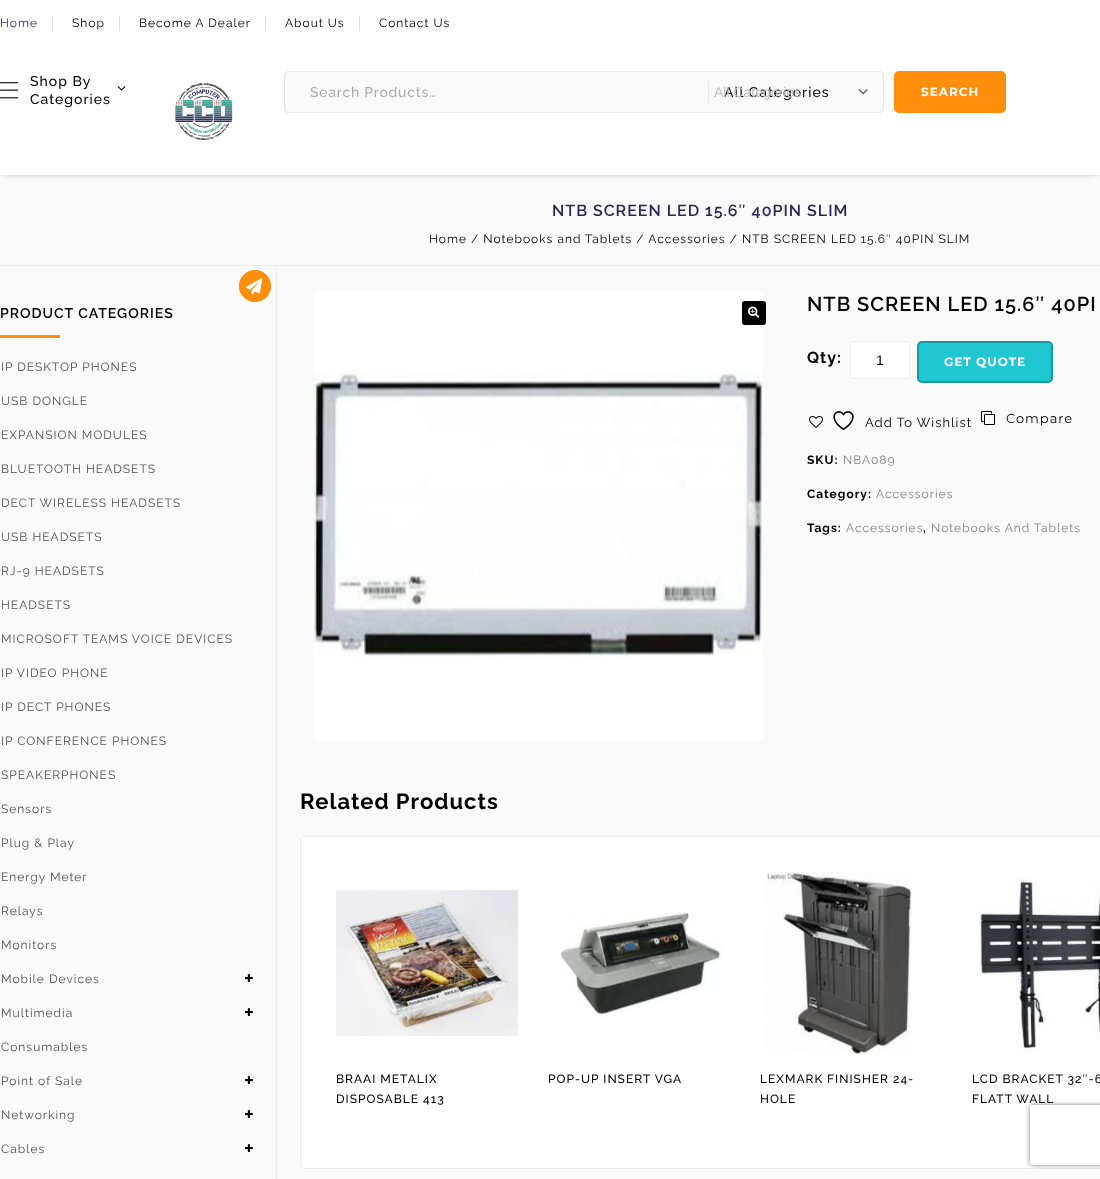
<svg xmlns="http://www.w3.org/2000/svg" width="1100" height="1179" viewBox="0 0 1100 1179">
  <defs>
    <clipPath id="clip1"><rect x="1" y="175" width="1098" height="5"/></clipPath>
    <clipPath id="clip2"><path d="M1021 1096H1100V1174H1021ZM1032 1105H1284C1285 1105 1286 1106 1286 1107V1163C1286 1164 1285 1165 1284 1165H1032C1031 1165 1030 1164 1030 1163V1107C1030 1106 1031 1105 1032 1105Z" clip-rule="evenodd"/></clipPath>
  </defs>
  <rect width="100%" height="100%" fill="rgb(250,250,250)"/>
  <rect x="0" y="0" width="1100" height="175" fill="rgb(255,255,255)"/>
  <text x="0" y="27" font-family="Raleway" font-size="12" letter-spacing="1" fill="rgb(46,46,121)">Home</text>
  <rect x="52" y="16" width="1" height="15" fill="rgb(221,221,221)"/>
  <text x="72" y="27" font-family="Raleway" font-size="12" letter-spacing="1" fill="rgb(1,1,1)">Shop</text>
  <rect x="119" y="16" width="1" height="15" fill="rgb(221,221,221)"/>
  <text x="139" y="27" font-family="Raleway" font-size="12" letter-spacing="1" fill="rgb(1,1,1)">Become A Dealer</text>
  <rect x="265" y="16" width="1" height="15" fill="rgb(221,221,221)"/>
  <text x="285" y="27" font-family="Raleway" font-size="12" letter-spacing="1" fill="rgb(1,1,1)">About Us</text>
  <rect x="359" y="16" width="1" height="15" fill="rgb(221,221,221)"/>
  <text x="379" y="27" font-family="Raleway" font-size="12" letter-spacing="1" fill="rgb(1,1,1)">Contact Us</text>
  <rect x="0" y="175" width="1100" height="1" fill="rgb(238,238,238)"/>
  <g clip-path="url(#clip1)">
    <rect x="5" y="57" width="1090" height="118" fill="rgb(207,207,207)" filter="blur(2.5px)"/>
  </g>
  <image x="0" y="82" width="18" height="17" href="pic1.png"/>
  <text x="30" y="86" font-family="Raleway" font-size="14" font-weight="500" letter-spacing="1" fill="rgb(1,1,1)">Shop By</text>
  <image x="117" y="86" width="9" height="5" href="pic2.png"/>
  <text x="30" y="104" font-family="Raleway" font-size="14" font-weight="500" letter-spacing="1" fill="rgb(1,1,1)">Categories</text>
  <image x="175" y="82" width="58" height="59" href="pic3.png"/>
  <path d="M289 71H709V113H289C286 113 284 111 284 108V76C284 73 286 71 289 71Z" fill="rgb(250,250,250)"/>
  <image x="708" y="80" width="1" height="25" href="pic4.png"/>
  <path d="M289 71H709V113H289C286 113 284 111 284 108V76C284 73 286 71 289 71ZM289 72H709V112H289C287 112 285 110 285 108V76C285 74 287 72 289 72Z" fill="rgb(230,230,230)" fill-rule="evenodd"/>
  <text x="310" y="97" font-family="Raleway" font-size="14" font-weight="500" letter-spacing="0.75" fill="rgb(170,170,170)">Search Products…</text>
  <path d="M709 71H879C882 71 884 73 884 76V108C884 111 882 113 879 113H709Z" fill="rgb(250,250,250)"/>
  <path d="M709 71H879C882 71 884 73 884 76V108C884 111 882 113 879 113H709ZM709 72H879C881 72 883 74 883 76V108C883 110 881 112 879 112H709Z" fill="rgb(230,230,230)" fill-rule="evenodd"/>
  <text x="724" y="97" font-family="Raleway" font-size="14" font-weight="500" letter-spacing="1" fill="rgb(1,1,1)">All Categories</text>
  <text x="714" y="97" font-family="Liberation Sans" font-size="14" fill="rgb(191,191,191)">All Categories</text>
  <image x="858" y="89" width="10" height="6" href="pic5.png"/>
  <rect x="895" y="72" width="110" height="40" rx="4" fill="rgb(255,142,10)" stroke="rgb(255,142,10)" stroke-width="2"/>
  <text x="921" y="96" font-family="Montserrat" font-size="12" font-weight="bold" letter-spacing="1" fill="rgb(255,255,255)">SEARCH</text>
  <rect x="0" y="265" width="1100" height="1" fill="rgb(238,238,238)"/>
  <text x="552" y="216" font-family="Raleway" font-size="16" font-weight="600" letter-spacing="1" fill="rgb(41,38,91)">NTB SCREEN LED 15.6″ 40PIN SLIM</text>
  <text x="429" y="243" font-family="Raleway" font-size="12" letter-spacing="1" fill="rgb(1,1,1)">Home / Notebooks and Tablets / Accessories / NTB SCREEN LED 15.6″ 40PIN SLIM</text>
  <rect x="276" y="266" width="1" height="913" fill="rgb(238,238,238)"/>
  <circle cx="255" cy="286" r="16" fill="rgb(255,142,10)"/>
  <image x="245" y="278" width="18" height="17" href="pic6.png"/>
  <circle cx="255" cy="286" r="15.5" fill="none" stroke="rgb(255,142,10)"/>
  <text x="0" y="318" font-family="Raleway" font-size="14" font-weight="600" letter-spacing="1" fill="rgb(1,1,1)">PRODUCT CATEGORIES</text>
  <rect x="0" y="335" width="60" height="3" fill="rgb(255,142,10)"/>
  <g font-family="Raleway" font-size="12" letter-spacing="1" fill="rgb(81,81,81)">
    <text x="1" y="371">IP DESKTOP PHONES</text>
    <text x="1" y="405">USB DONGLE</text>
    <text x="1" y="439">EXPANSION MODULES</text>
    <text x="1" y="473">BLUETOOTH HEADSETS</text>
    <text x="1" y="507">DECT WIRELESS HEADSETS</text>
    <text x="1" y="541">USB HEADSETS</text>
    <text x="1" y="575">RJ-9 HEADSETS</text>
    <text x="1" y="609">HEADSETS</text>
    <text x="1" y="643">MICROSOFT TEAMS VOICE DEVICES</text>
    <text x="1" y="677">IP VIDEO PHONE</text>
    <text x="1" y="711">IP DECT PHONES</text>
    <text x="1" y="745">IP CONFERENCE PHONES</text>
    <text x="1" y="779">SPEAKERPHONES</text>
    <text x="1" y="813">Sensors</text>
    <text x="1" y="847">Plug &amp; Play</text>
    <text x="1" y="881">Energy Meter</text>
    <text x="1" y="915">Relays</text>
    <text x="1" y="949">Monitors</text>
    <text x="1" y="983">Mobile Devices</text>
  </g>
  <image x="245" y="974" width="8" height="8" href="pic7.png"/>
  <text x="1" y="1017" font-family="Raleway" font-size="12" letter-spacing="1" fill="rgb(81,81,81)">Multimedia</text>
  <image x="245" y="1008" width="8" height="8" href="pic7.png"/>
  <g font-family="Raleway" font-size="12" letter-spacing="1" fill="rgb(81,81,81)">
    <text x="1" y="1051">Consumables</text>
    <text x="1" y="1085">Point of Sale</text>
  </g>
  <image x="245" y="1076" width="8" height="8" href="pic7.png"/>
  <text x="1" y="1119" font-family="Raleway" font-size="12" letter-spacing="1" fill="rgb(81,81,81)">Networking</text>
  <image x="245" y="1110" width="8" height="8" href="pic7.png"/>
  <text x="1" y="1153" font-family="Raleway" font-size="12" letter-spacing="1" fill="rgb(81,81,81)">Cables</text>
  <image x="245" y="1144" width="8" height="8" href="pic7.png"/>
  <image x="313" y="291" width="450" height="450" href="pic8.png"/>
  <rect x="742" y="301" width="24" height="24" rx="3" fill="rgb(0,0,0)"/>
  <image x="748" y="306" width="12" height="12" href="pic9.png"/>
  <text x="807" y="311" font-family="Raleway" font-size="20" font-weight="600" letter-spacing="1" fill="rgb(1,1,1)">NTB SCREEN LED 15.6″ 40PI</text>
  <text x="807" y="363" font-family="Raleway" font-size="16" font-weight="bold" letter-spacing="1" fill="rgb(1,1,1)">Qty:</text>
  <rect x="850.5" y="341.5" width="59" height="37" fill="rgb(255,255,255)" stroke="rgb(237,237,237)"/>
  <text x="876" y="365" font-family="Liberation Sans" font-size="14" fill="rgb(1,1,1)">1</text>
  <rect x="918" y="342" width="134" height="40" rx="4" fill="rgb(31,199,209)" stroke="rgb(24,152,160)" stroke-width="2"/>
  <text x="944" y="366" font-family="Montserrat" font-size="12" font-weight="bold" letter-spacing="1" fill="rgb(255,255,255)">GET QUOTE</text>
  <image x="809" y="416" width="14" height="12" href="pic10.png"/>
  <image x="833" y="411" width="21" height="19" href="pic11.png"/>
  <text x="865" y="427" font-family="Raleway" font-size="13" letter-spacing="1" fill="rgb(1,1,1)">Add To Wishlist</text>
  <image x="981" y="411" width="14" height="14" href="pic12.png"/>
  <text x="1006" y="423" font-family="Montserrat" font-size="13" letter-spacing="1" fill="rgb(1,1,1)">Compare</text>
  <text x="807" y="464" font-family="Raleway" font-size="12" font-weight="bold" letter-spacing="1" fill="rgb(1,1,1)">SKU:</text>
  <text x="843" y="464" font-family="Raleway" font-size="12" letter-spacing="1" fill="rgb(128,128,128)">NBA089</text>
  <text x="807" y="498" font-family="Raleway" font-size="12" font-weight="bold" letter-spacing="1" fill="rgb(1,1,1)">Category:</text>
  <text x="876" y="498" font-family="Raleway" font-size="12" letter-spacing="1" fill="rgb(128,128,128)">Accessories</text>
  <text x="807" y="532" font-family="Raleway" font-size="12" font-weight="bold" letter-spacing="1" fill="rgb(1,1,1)">Tags:</text>
  <text x="846" y="532" font-family="Raleway" font-size="12" letter-spacing="1" fill="rgb(128,128,128)">Accessories</text>
  <text x="923" y="532" font-family="Raleway" font-size="12" font-weight="bold" letter-spacing="1" fill="rgb(1,1,1)">,</text>
  <text x="931" y="532" font-family="Raleway" font-size="12" letter-spacing="1" fill="rgb(128,128,128)">Notebooks And Tablets</text>
  <text x="300" y="809" font-family="Raleway" font-size="22" font-weight="bold" letter-spacing="1" fill="rgb(1,1,1)">Related Products</text>
  <rect x="300.5" y="836.5" width="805" height="332" rx="4.5" fill="rgb(255,255,255)" stroke="rgb(235,235,235)"/>
  <image x="336" y="890" width="182" height="146" href="pic13.png"/>
  <g font-family="Raleway" font-size="12" font-weight="500" letter-spacing="1" fill="rgb(1,1,1)">
    <text>
      <tspan x="336" y="1083">BRAAI METALIX</tspan>
      <tspan x="336" y="1103">DISPOSABLE 413</tspan>
    </text>
  </g>
  <image x="560" y="912" width="162" height="106" href="pic14.png"/>
  <text x="548" y="1083" font-family="Raleway" font-size="12" font-weight="500" letter-spacing="1" fill="rgb(1,1,1)">POP-UP INSERT VGA</text>
  <image x="766" y="872" width="146" height="182" href="pic15.png"/>
  <g font-family="Raleway" font-size="12" font-weight="500" letter-spacing="1" fill="rgb(1,1,1)">
    <text>
      <tspan x="760" y="1083">LEXMARK FINISHER 24-</tspan>
      <tspan x="760" y="1103">HOLE</tspan>
    </text>
  </g>
  <image x="978" y="878" width="122" height="176" href="pic16.png"/>
  <g font-family="Raleway" font-size="12" font-weight="500" letter-spacing="1" fill="rgb(1,1,1)">
    <text>
      <tspan x="972" y="1083">LCD BRACKET 32″-6</tspan>
      <tspan x="972" y="1103">FLATT WALL</tspan>
    </text>
  </g>
  <g clip-path="url(#clip2)">
    <rect x="1030" y="1105" width="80" height="60" rx="2" fill="rgb(128,128,128)" filter="blur(2.5px)"/>
  </g>
</svg>
